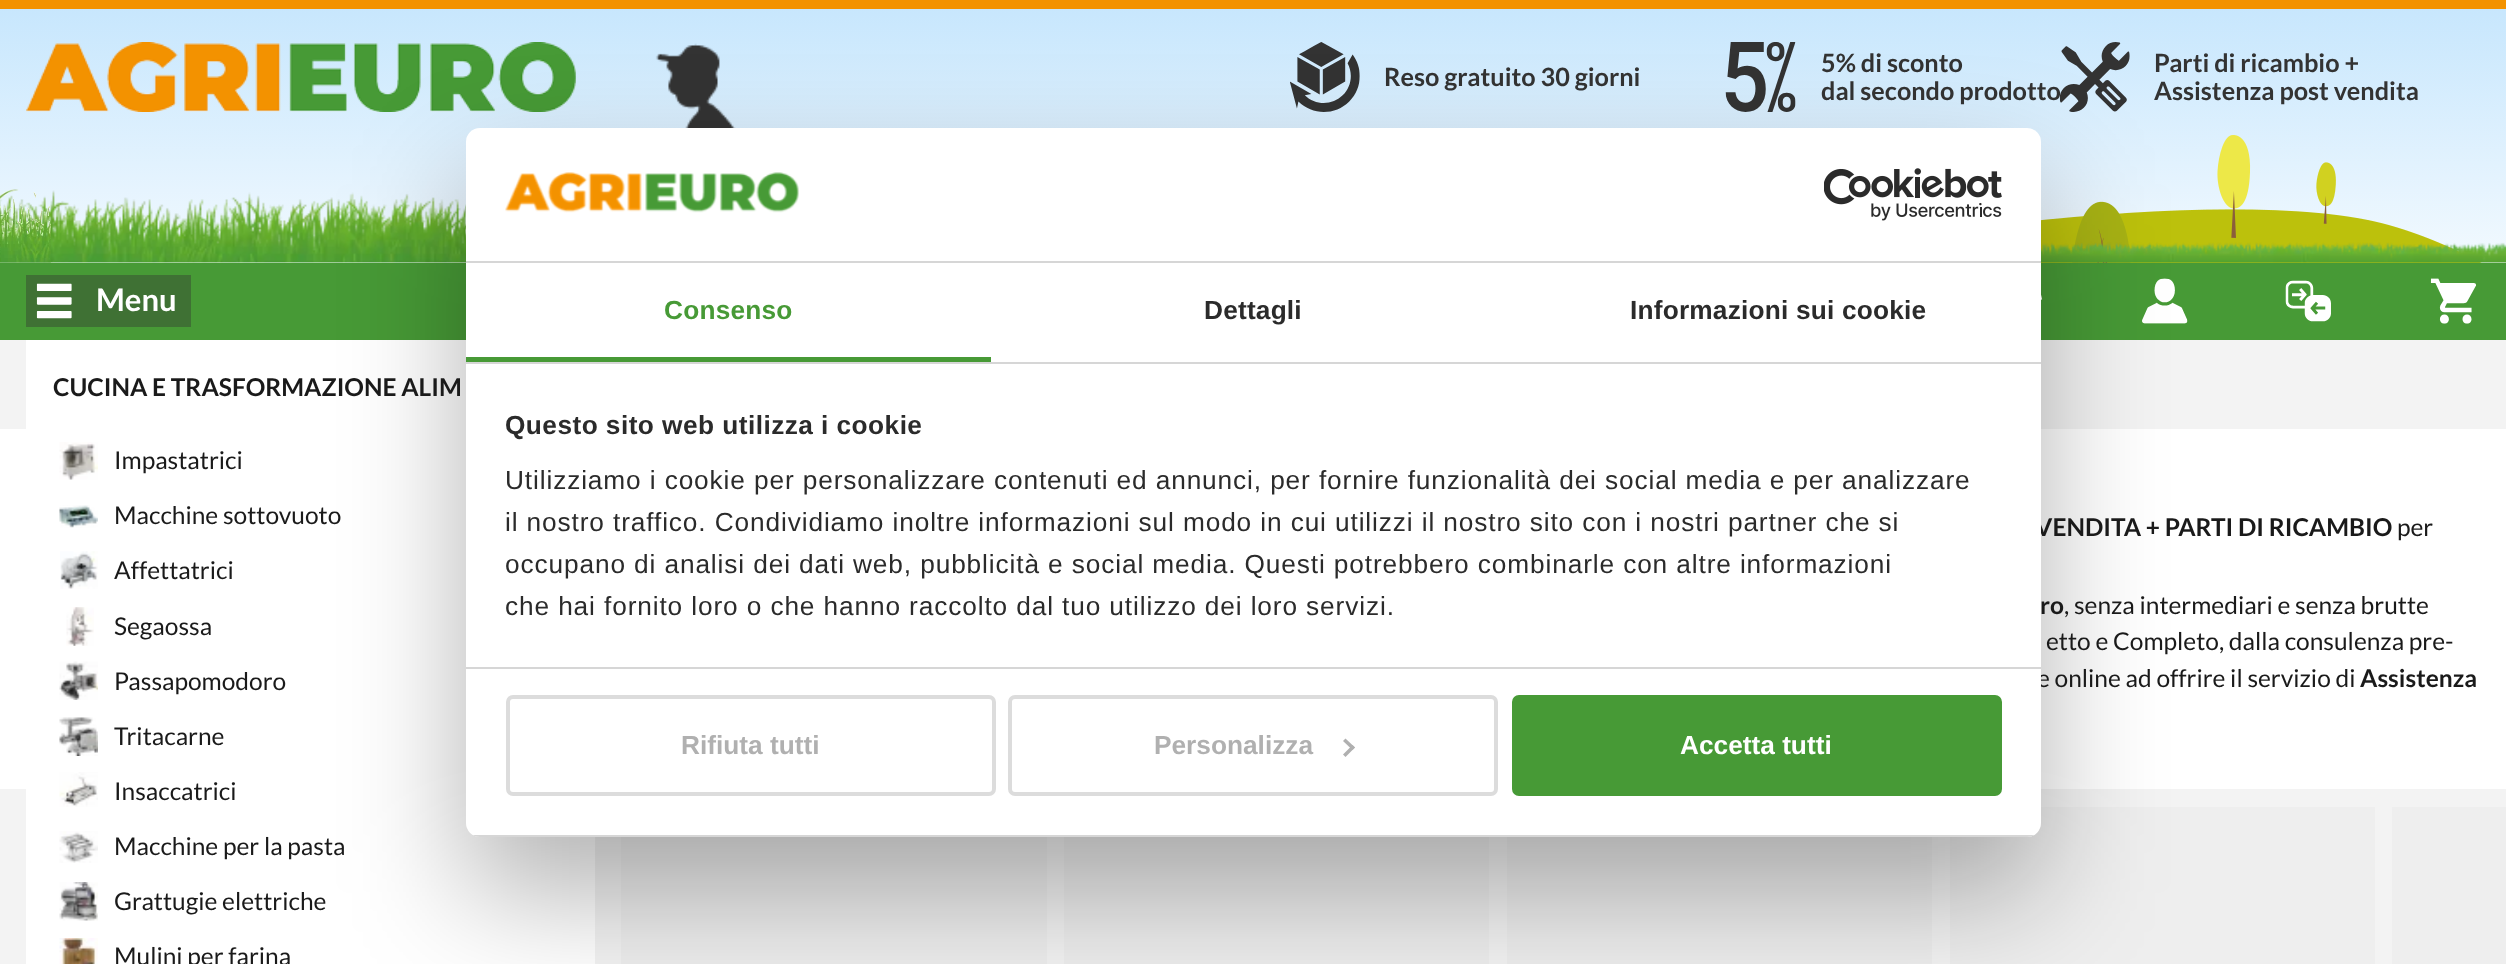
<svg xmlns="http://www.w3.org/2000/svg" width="2506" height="964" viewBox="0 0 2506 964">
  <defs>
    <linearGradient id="g1" gradientUnits="userSpaceOnUse" x1="1253" y1="340" x2="1253" y2="0"><stop offset="0" stop-color="rgb(255,255,255)"/><stop offset="1" stop-color="rgb(198,230,253)"/></linearGradient>
    <linearGradient id="g2" gradientUnits="userSpaceOnUse" x1="-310" y1="898" x2="1440" y2="898"><stop offset="0.08" stop-color="rgb(238,238,238)"/><stop offset="0.18" stop-color="rgb(221,221,221)"/><stop offset="0.33" stop-color="rgb(238,238,238)"/></linearGradient>
    <linearGradient id="g3" gradientUnits="userSpaceOnUse" x1="133" y1="898" x2="1883" y2="898"><stop offset="0.08" stop-color="rgb(238,238,238)"/><stop offset="0.18" stop-color="rgb(221,221,221)"/><stop offset="0.33" stop-color="rgb(238,238,238)"/></linearGradient>
    <linearGradient id="g4" gradientUnits="userSpaceOnUse" x1="576" y1="898" x2="2326" y2="898"><stop offset="0.08" stop-color="rgb(238,238,238)"/><stop offset="0.18" stop-color="rgb(221,221,221)"/><stop offset="0.33" stop-color="rgb(238,238,238)"/></linearGradient>
    <linearGradient id="g5" gradientUnits="userSpaceOnUse" x1="1019" y1="898" x2="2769" y2="898"><stop offset="0.08" stop-color="rgb(238,238,238)"/><stop offset="0.18" stop-color="rgb(221,221,221)"/><stop offset="0.33" stop-color="rgb(238,238,238)"/></linearGradient>
    <clipPath id="clip1"><rect x="466" y="128" width="1575" height="709" rx="14"/></clipPath>
    <linearGradient id="g6" gradientUnits="userSpaceOnUse" x1="1461" y1="898" x2="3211" y2="898"><stop offset="0.08" stop-color="rgb(238,238,238)"/><stop offset="0.18" stop-color="rgb(221,221,221)"/><stop offset="0.33" stop-color="rgb(238,238,238)"/></linearGradient>
  </defs>
  <rect width="100%" height="100%" fill="rgb(243,243,243)"/>
  <rect x="0" y="9" width="2506" height="254" fill="url(#g1)"/>
  <rect x="0" y="0" width="2506" height="9" fill="rgb(243,146,0)"/>
  <image x="2041" y="135" width="441" height="128" href="pic3.png"/>
  <image x="0" y="43" width="2506" height="220" href="pic1.png"/>
  <image x="0" y="189" width="51" height="74" href="pic2.png"/>
  <image x="26" y="42" width="550" height="70" href="pic4.png"/>
  <image x="1290" y="42" width="70" height="70" href="pic5.png"/>
  <text x="1384" y="86" font-family="Lato" font-size="25.25" font-weight="bold" fill="rgb(51,51,51)">Reso gratuito 30 giorni</text>
  <image x="1725" y="42" width="71" height="70" href="pic6.png"/>
  <g font-family="Lato" font-size="25.25" font-weight="bold" fill="rgb(51,51,51)">
    <text>
      <tspan x="1821" y="72">5% di sconto</tspan>
      <tspan x="1821" y="100">dal secondo prodotto</tspan>
    </text>
  </g>
  <image x="2059" y="42" width="71" height="70" href="pic7.png"/>
  <g font-family="Lato" font-size="25.25" font-weight="bold" fill="rgb(51,51,51)">
    <text>
      <tspan x="2154" y="72">Parti di ricambio +</tspan>
      <tspan x="2154" y="100">Assistenza post vendita</tspan>
    </text>
  </g>
  <rect x="0" y="263" width="2506" height="77" fill="rgb(71,154,54)"/>
  <rect x="26" y="275" width="165" height="52" fill="rgb(63,113,52)"/>
  <image x="36" y="283" width="36" height="36" href="pic8.png"/>
  <text x="96" y="311" font-family="Lato" font-size="31" font-weight="bold" fill="rgb(255,255,255)">Menu</text>
  <image x="2041" y="295" width="2" height="5" href="pic9.png"/>
  <image x="2142" y="278" width="46" height="46" href="pic10.png"/>
  <image x="2285" y="280" width="46" height="42" href="pic11.png"/>
  <image x="2430" y="278" width="46" height="46" href="pic12.png"/>
  <rect x="26" y="340" width="569" height="624" fill="rgb(255,255,255)"/>
  <rect x="2041" y="429" width="465" height="360" fill="rgb(255,255,255)"/>
  <rect x="621" y="837" width="426" height="127" fill="url(#g2)"/>
  <rect x="1064" y="837" width="425" height="127" fill="url(#g3)"/>
  <rect x="1507" y="837" width="425" height="127" fill="url(#g4)"/>
  <rect x="1950" y="807" width="425" height="157" fill="url(#g5)"/>
  <rect x="466" y="184" width="1575" height="709" rx="14" fill="rgba(0,0,0,0.3)" filter="blur(59.5px)"/>
  <text x="2035" y="536" font-family="Lato" font-size="24.5" font-weight="bold" fill="rgb(26,26,26)">VENDITA + PARTI DI RICAMBIO</text>
  <text x="2037" y="687" font-family="Lato" font-size="24.5" fill="rgb(26,26,26)">e online ad offrire il servizio di</text>
  <rect x="466" y="128" width="1575" height="709" rx="14" fill="rgb(255,255,255)"/>
  <rect x="466" y="261" width="1575" height="2" fill="rgb(214,214,214)"/>
  <image x="505" y="172" width="294" height="41" href="pic13.png"/>
  <image x="1824" y="168" width="178" height="53" href="pic14.png"/>
  <rect x="466" y="362" width="1575" height="2" fill="rgb(214,214,214)"/>
  <rect x="466" y="357" width="525" height="5" fill="rgb(71,154,54)"/>
  <text x="664" y="319" font-family="Liberation Sans" font-size="26.25" font-weight="bold" letter-spacing="0.2" fill="rgb(71,154,54)">Consenso</text>
  <g font-family="Liberation Sans" font-size="26.25" font-weight="bold" letter-spacing="0.2" fill="rgb(43,43,43)">
    <text x="1204" y="319">Dettagli</text>
    <text x="1630" y="319">Informazioni sui cookie</text>
  </g>
  <rect x="466" y="667" width="1575" height="2" fill="rgb(214,214,214)"/>
  <text x="505" y="434" font-family="Liberation Sans" font-size="26.25" font-weight="bold" letter-spacing="0.45" fill="rgb(43,43,43)">Questo sito web utilizza i cookie</text>
  <g font-family="Liberation Sans" font-size="26.25" letter-spacing="0.88" fill="rgb(43,43,43)">
    <text>
      <tspan x="505" y="489">Utilizziamo i cookie per personalizzare contenuti ed annunci, per fornire funzionalità dei social media e per analizzare</tspan>
      <tspan x="505" y="531">il nostro traffico. Condividiamo inoltre informazioni sul modo in cui utilizzi il nostro sito con i nostri partner che si</tspan>
      <tspan x="505" y="573">occupano di analisi dei dati web, pubblicità e social media. Questi potrebbero combinarle con altre informazioni</tspan>
      <tspan x="505" y="615">che hai fornito loro o che hanno raccolto dal tuo utilizzo dei loro servizi.</tspan>
    </text>
  </g>
  <g clip-path="url(#clip1)">
    <rect x="466" y="835" width="1575" height="2" fill="rgb(214,214,214)"/>
  </g>
  <rect x="508" y="697" width="486" height="97" rx="5" fill="none" stroke="rgb(220,220,220)" stroke-width="4"/>
  <text x="681" y="754" font-family="Liberation Sans" font-size="26.25" font-weight="bold" fill="rgb(176,176,176)">Rifiuta tutti</text>
  <rect x="1010" y="697" width="486" height="97" rx="5" fill="none" stroke="rgb(220,220,220)" stroke-width="4"/>
  <text x="1154" y="754" font-family="Liberation Sans" font-size="26.25" font-weight="bold" fill="rgb(176,176,176)">Personalizza</text>
  <path d="M1345.5 738.5L1355 747.5L1352.5 750L1343 741Z" fill="rgb(176,176,176)"/>
  <path d="M1352.5 745L1355 747.5L1345.5 757L1343 754.5Z" fill="rgb(176,176,176)"/>
  <rect x="1514" y="697" width="486" height="97" rx="5" fill="rgb(71,154,54)" stroke="rgb(71,154,54)" stroke-width="4"/>
  <text x="1680" y="754" font-family="Liberation Sans" font-size="26.25" font-weight="bold" fill="rgb(255,255,255)">Accetta tutti</text>
  <text x="53" y="396" font-family="Lato" font-size="24.5" font-weight="bold" fill="rgb(26,26,26)">CUCINA E TRASFORMAZIONE ALIM</text>
  <image x="59" y="442" width="39" height="38" href="pic15.png"/>
  <text x="114" y="469" font-family="Lato" font-size="24.5" fill="rgb(26,26,26)">Impastatrici</text>
  <image x="59" y="505" width="39" height="23" href="pic16.png"/>
  <text x="114" y="524" font-family="Lato" font-size="24.5" fill="rgb(26,26,26)">Macchine sottovuoto</text>
  <image x="60" y="551" width="38" height="38" href="pic17.png"/>
  <text x="114" y="579" font-family="Lato" font-size="24.5" fill="rgb(26,26,26)">Affettatrici</text>
  <image x="66" y="607" width="28" height="39" href="pic18.png"/>
  <text x="114" y="635" font-family="Lato" font-size="24.5" fill="rgb(26,26,26)">Segaossa</text>
  <image x="59" y="661" width="39" height="39" href="pic19.png"/>
  <text x="114" y="690" font-family="Lato" font-size="24.5" fill="rgb(26,26,26)">Passapomodoro</text>
  <image x="59" y="717" width="39" height="39" href="pic20.png"/>
  <text x="114" y="745" font-family="Lato" font-size="24.5" fill="rgb(26,26,26)">Tritacarne</text>
  <image x="59" y="772" width="39" height="35" href="pic21.png"/>
  <text x="114" y="800" font-family="Lato" font-size="24.5" fill="rgb(26,26,26)">Insaccatrici</text>
  <image x="59" y="831" width="39" height="32" href="pic22.png"/>
  <text x="114" y="855" font-family="Lato" font-size="24.5" fill="rgb(26,26,26)">Macchine per la pasta</text>
  <image x="59" y="882" width="39" height="39" href="pic23.png"/>
  <text x="114" y="910" font-family="Lato" font-size="24.5" fill="rgb(26,26,26)">Grattugie elettriche</text>
  <image x="59" y="938" width="39" height="26" href="pic24.png"/>
  <text x="114" y="965" font-family="Lato" font-size="24.5" fill="rgb(26,26,26)">Mulini per farina</text>
  <rect x="0" y="429" width="26" height="360" fill="rgb(255,255,255)"/>
  <text x="2397" y="536" font-family="Lato" font-size="24.5" fill="rgb(26,26,26)">per</text>
  <text x="2040" y="614" font-family="Lato" font-size="24.5" font-weight="bold" fill="rgb(26,26,26)">ro</text>
  <g font-family="Lato" font-size="24.5" fill="rgb(26,26,26)">
    <text x="2064" y="614">, senza intermediari e senza brutte</text>
    <text x="2046" y="650">etto e Completo, dalla consulenza pre-</text>
  </g>
  <text x="2360" y="687" font-family="Lato" font-size="24.5" font-weight="bold" fill="rgb(26,26,26)">Assistenza</text>
  <rect x="2392" y="807" width="114" height="157" fill="url(#g6)"/>
</svg>
